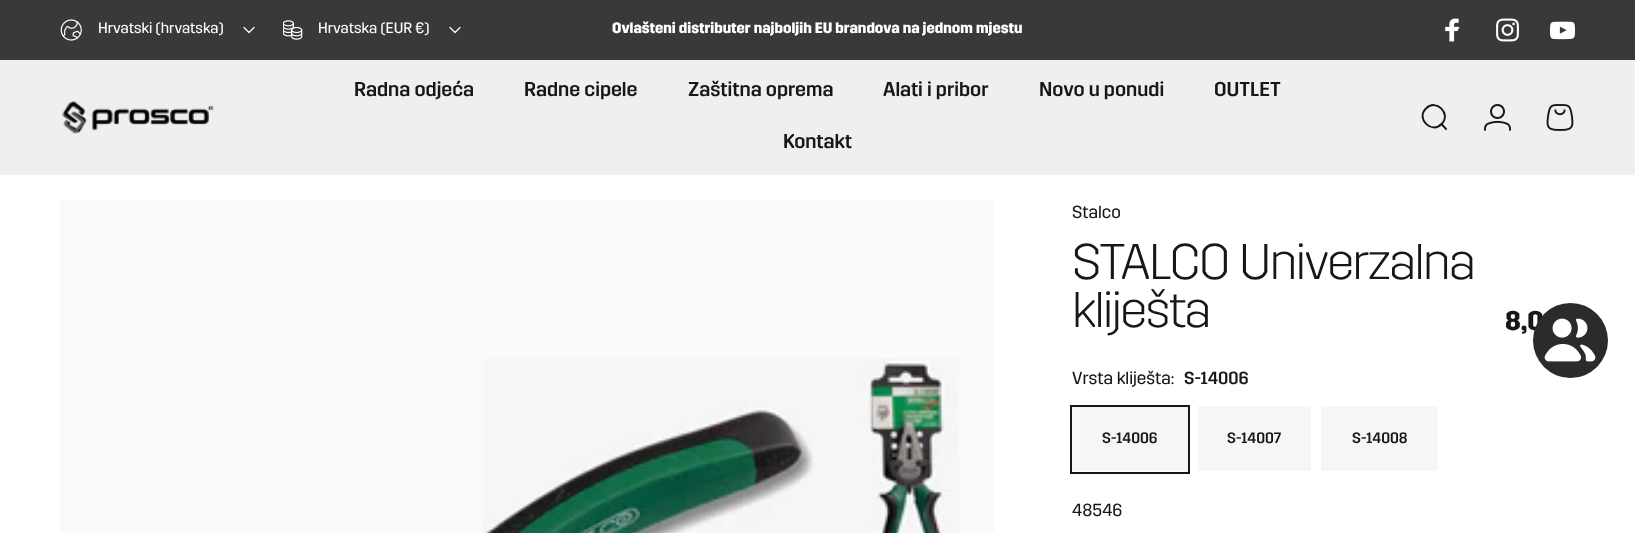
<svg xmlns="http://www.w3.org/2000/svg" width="1635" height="533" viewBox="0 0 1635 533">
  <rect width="100%" height="100%" fill="rgb(255,255,255)"/>
  <rect x="0" y="0" width="1635" height="60" fill="rgb(57,57,57)"/>
  <image x="60" y="19" width="22" height="22" href="pic1.png"/>
  <text x="98" y="33" font-family="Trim" font-size="15" fill="rgb(255,255,255)">Hrvatski (hrvatska)</text>
  <path d="M244 27.5L249 32.5L254 27.5" fill="none" stroke="rgb(255,255,255)" stroke-width="1.2" stroke-linecap="round" stroke-linejoin="round"/>
  <image x="283" y="20" width="20" height="20" href="pic2.png"/>
  <text x="318" y="33" font-family="Trim" font-size="15" fill="rgb(255,255,255)">Hrvatska (EUR €)</text>
  <path d="M450 27.5L455 32.5L460 27.5" fill="none" stroke="rgb(255,255,255)" stroke-width="1.2" stroke-linecap="round" stroke-linejoin="round"/>
  <text x="612" y="33" font-family="Trim" font-size="15" font-weight="bold" fill="rgb(255,255,255)">Ovlašteni distributer najboljih EU brandova na jednom mjestu</text>
  <image x="1445" y="18" width="15" height="24" href="pic3.png"/>
  <image x="1496" y="18" width="23" height="24" href="pic4.png"/>
  <image x="1550" y="21" width="25" height="19" href="pic5.png"/>
  <rect x="0" y="60" width="1635" height="115" fill="rgb(239,239,239)"/>
  <image x="62" y="101" width="152" height="33" href="pic6.png"/>
  <g font-family="Trim" font-size="20" font-weight="500" fill="rgb(23,23,23)">
    <text x="354" y="96">Radna odjeća</text>
    <text x="524" y="96">Radne cipele</text>
    <text x="688" y="96">Zaštitna oprema</text>
    <text x="883" y="96">Alati i pribor</text>
    <text x="1039" y="96">Novo u ponudi</text>
    <text x="1214" y="96">OUTLET</text>
    <text x="783" y="148">Kontakt</text>
  </g>
  <path d="M1446 129L1441.5 124M1441.5 124C1452 114 1436 98 1426 108.5C1415.5 118.5 1431.5 134.5 1441.5 124Z" fill="none" stroke="rgb(23,23,23)" stroke-width="1.9" stroke-linecap="round"/>
  <image x="1484" y="104" width="27" height="27" href="pic7.png"/>
  <image x="1546" y="104" width="28" height="27" href="pic8.png"/>
  <rect x="60" y="200" width="935" height="333" fill="rgb(250,250,250)"/>
  <image x="483" y="358" width="476" height="175" href="pic9.png"/>
  <text x="1072" y="218" font-family="Trim" font-size="17.5" fill="rgb(23,23,23)">Stalco</text>
  <g font-family="Trim" font-size="50" font-weight="300" letter-spacing="-1.5" fill="rgb(23,23,23)">
    <text x="1072" y="279">STALCO</text>
    <text x="1239" y="279">Univerzalna</text>
    <text x="1072" y="327">kliješta</text>
  </g>
  <text x="1505" y="330" font-family="Trim" font-size="27" font-weight="bold" fill="rgb(23,23,23)">8,0</text>
  <text x="1072" y="384" font-family="Trim" font-size="17.5" fill="rgb(23,23,23)">Vrsta kliješta:</text>
  <text x="1184" y="384" font-family="Trim" font-size="17.5" font-weight="500" fill="rgb(23,23,23)">S-14006</text>
  <rect x="1072" y="407" width="116" height="64" fill="rgb(246,246,246)"/>
  <rect x="1071" y="406" width="118" height="67" fill="none" stroke="rgb(23,23,23)" stroke-width="2"/>
  <text x="1102" y="443" font-family="Trim" font-size="15" font-weight="500" fill="rgb(23,23,23)">S-14006</text>
  <rect x="1198" y="406" width="113" height="65" fill="rgb(246,246,246)"/>
  <text x="1227" y="443" font-family="Trim" font-size="15" font-weight="500" fill="rgb(23,23,23)">S-14007</text>
  <rect x="1321" y="406" width="117" height="65" fill="rgb(246,246,246)"/>
  <text x="1352" y="443" font-family="Trim" font-size="15" font-weight="500" fill="rgb(23,23,23)">S-14008</text>
  <text x="1072" y="516" font-family="Trim" font-size="17.5" fill="rgb(23,23,23)">48546</text>
  <circle cx="1570.5" cy="340.5" r="37.5" fill="rgb(43,43,43)"/>
  <image x="1544" y="318" width="52" height="44" href="pic10.png"/>
</svg>
